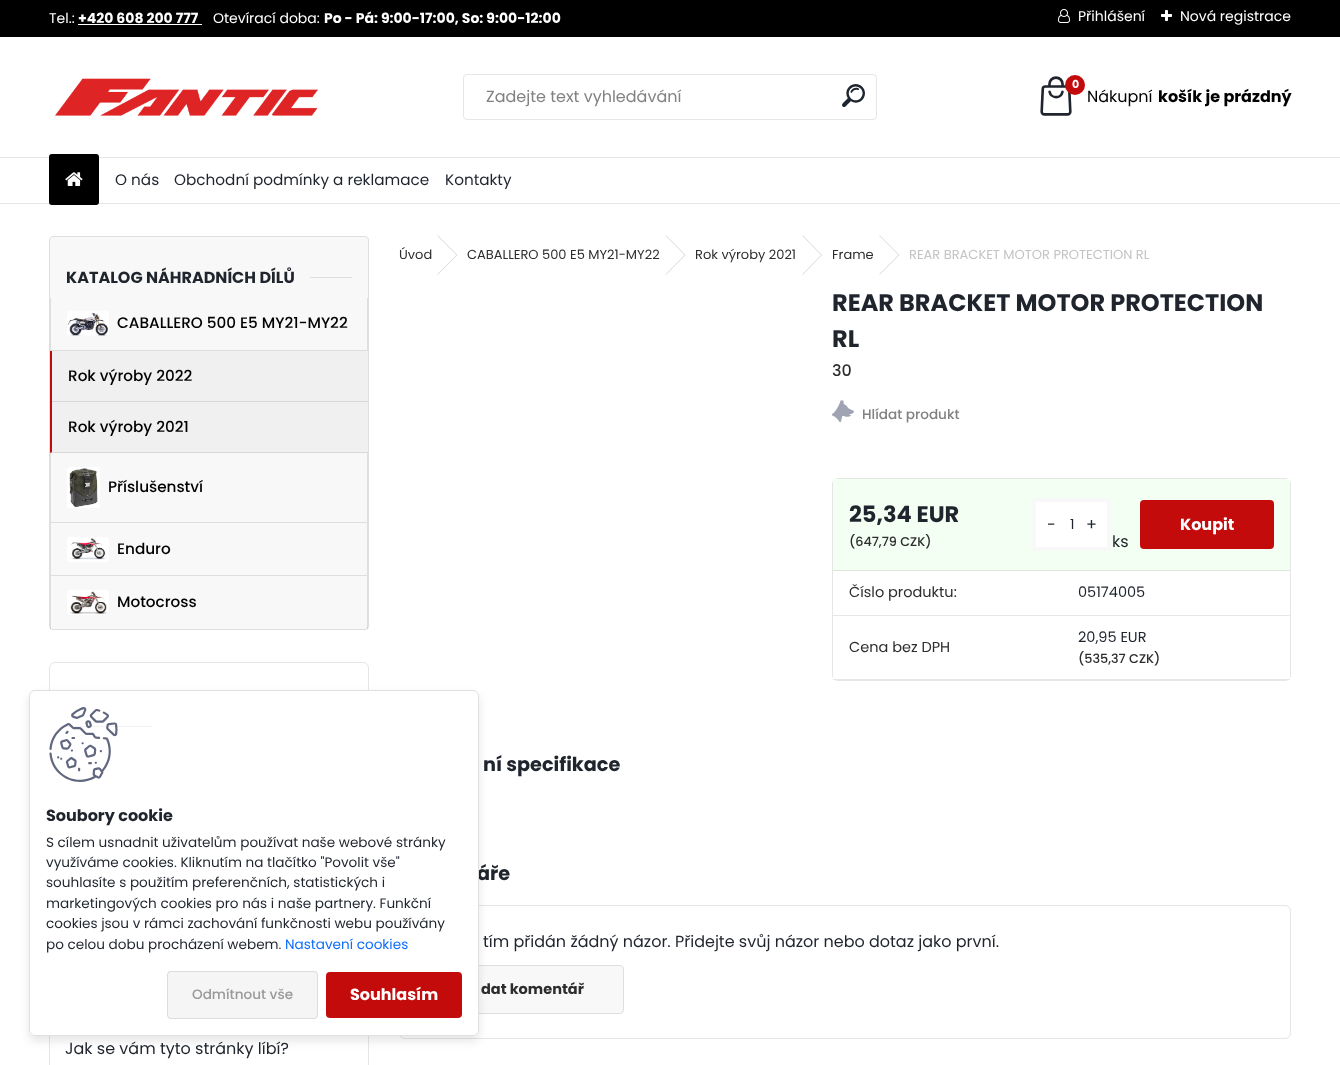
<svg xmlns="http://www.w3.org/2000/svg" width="1340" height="1065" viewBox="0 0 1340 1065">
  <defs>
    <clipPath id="clip1"><path d="M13 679H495V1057H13ZM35 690H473C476.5 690 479 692.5 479 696V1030C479 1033.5 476.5 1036 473 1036H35C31.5 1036 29 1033.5 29 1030V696C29 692.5 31.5 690 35 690Z" clip-rule="evenodd"/></clipPath>
  </defs>
  <rect width="100%" height="100%" fill="rgb(255,255,255)"/>
  <rect x="0" y="0" width="1340" height="37" fill="rgb(0,0,0)"/>
  <text x="49" y="23" font-family="Poppins" font-size="14" fill="rgb(255,255,255)">Tel.:</text>
  <text x="78" y="23" font-family="Poppins" font-size="14" font-weight="bold" fill="rgb(255,255,255)">+420 608 200 777</text>
  <rect x="78" y="24" width="124" height="1" fill="rgb(255,255,255)"/>
  <text x="213" y="23" font-family="Poppins" font-size="14" fill="rgb(255,255,255)">Otevírací doba:</text>
  <text x="324" y="23" font-family="Poppins" font-size="14" font-weight="bold" fill="rgb(255,255,255)">Po - Pá: 9:00-17:00, So: 9:00-12:00</text>
  <image x="1058" y="9" width="12" height="14" href="pic1.png"/>
  <text x="1078" y="21" font-family="Poppins" font-size="14" fill="rgb(255,255,255)">Přihlášení</text>
  <image x="1161" y="10" width="11" height="11" href="pic2.png"/>
  <text x="1180" y="21" font-family="Poppins" font-size="14" fill="rgb(255,255,255)">Nová registrace</text>
  <rect x="0" y="203" width="1340" height="1" fill="rgb(230,230,230)"/>
  <image x="54" y="78" width="264" height="38" href="pic3.png"/>
  <rect x="463.5" y="74.5" width="413" height="45" rx="3.5" fill="none" stroke="rgb(230,230,230)"/>
  <text x="486" y="102" font-family="Poppins" font-size="16" fill="rgb(129,129,129)">Zadejte text vyhledávání</text>
  <image x="842" y="84" width="23" height="23" href="pic4.png"/>
  <image x="1040" y="76" width="32" height="40" href="pic5.png"/>
  <circle cx="1075" cy="85" r="10" fill="rgb(196,11,11)"/>
  <text x="1072" y="88" font-family="Poppins" font-size="11" font-weight="bold" fill="rgb(255,255,255)">0</text>
  <text x="1087" y="102" font-family="Poppins" font-size="16" fill="rgb(0,0,0)">Nákupní</text>
  <text x="1158" y="102" font-family="Poppins" font-size="16" font-weight="bold" fill="rgb(0,0,0)">košík je prázdný</text>
  <rect x="0" y="157" width="1340" height="1" fill="rgb(230,230,230)"/>
  <rect x="49" y="154" width="50" height="51" rx="3" fill="rgb(0,0,0)"/>
  <image x="65" y="172" width="18" height="14" href="pic6.png"/>
  <g font-family="Poppins" font-size="15.25" fill="rgb(31,36,45)">
    <text x="115" y="185">O nás</text>
    <text x="174" y="185">Obchodní podmínky a reklamace</text>
    <text x="445" y="185">Kontakty</text>
  </g>
  <rect x="49.5" y="236.5" width="319" height="393" rx="3.5" fill="rgb(248,248,248)" stroke="rgb(223,223,223)"/>
  <text x="66" y="283" font-family="Poppins" font-size="16" font-weight="bold" fill="rgb(31,36,45)">KATALOG NÁHRADNÍCH DÍLŮ</text>
  <rect x="310" y="277" width="42" height="1" fill="rgb(223,223,223)"/>
  <path d="M368 298V351L367 350V298Z" fill="rgb(223,223,223)"/>
  <path d="M368 351H50L51 350H367Z" fill="rgba(0,0,0,0.1)"/>
  <path d="M50 351V298H51V350Z" fill="rgba(0,0,0,0.1)"/>
  <image x="67" y="311" width="42" height="25" href="pic7.png"/>
  <text x="117" y="328" font-family="Poppins" font-size="15.25" font-weight="500" fill="rgb(0,0,0)">CABALLERO 500 E5 MY21-MY22</text>
  <rect x="50" y="351" width="318" height="102" fill="rgb(240,240,240)"/>
  <path d="M368 453H50L52 452H368Z" fill="rgb(216,216,216)"/>
  <path d="M50 453V351H52V452Z" fill="rgb(196,11,11)"/>
  <rect x="52" y="401" width="316" height="1" fill="rgb(216,216,216)"/>
  <g font-family="Poppins" font-size="15.25" font-weight="500" fill="rgb(0,0,0)">
    <text x="68" y="381">Rok výroby 2022</text>
    <text x="68" y="432">Rok výroby 2021</text>
  </g>
  <path d="M368 453V523L367 522V453Z" fill="rgb(223,223,223)"/>
  <path d="M368 523H50L51 522H367Z" fill="rgba(0,0,0,0.1)"/>
  <path d="M50 523V453H51V522Z" fill="rgba(0,0,0,0.1)"/>
  <image x="67" y="467" width="33" height="41" href="pic8.png"/>
  <text x="108" y="492" font-family="Poppins" font-size="15.25" font-weight="500" fill="rgb(0,0,0)">Příslušenství</text>
  <path d="M368 523V576L367 575V523Z" fill="rgb(223,223,223)"/>
  <path d="M368 576H50L51 575H367Z" fill="rgba(0,0,0,0.1)"/>
  <path d="M50 576V523H51V575Z" fill="rgba(0,0,0,0.1)"/>
  <image x="67" y="537" width="42" height="25" href="pic9.png"/>
  <text x="117" y="554" font-family="Poppins" font-size="15.25" font-weight="500" fill="rgb(0,0,0)">Enduro</text>
  <rect x="367" y="576" width="1" height="53" fill="rgba(0,0,0,0.1)"/>
  <rect x="50" y="576" width="1" height="53" fill="rgba(0,0,0,0.1)"/>
  <image x="67" y="590" width="42" height="25" href="pic10.png"/>
  <text x="117" y="607" font-family="Poppins" font-size="15.25" font-weight="500" fill="rgb(0,0,0)">Motocross</text>
  <rect x="49.5" y="662.5" width="319" height="95" rx="5.5" fill="none" stroke="rgb(230,230,230)"/>
  <rect x="65" y="726" width="87" height="1" fill="rgb(31,36,45)"/>
  <rect x="49.5" y="790.5" width="319" height="148" rx="5.5" fill="none" stroke="rgb(230,230,230)"/>
  <rect x="50" y="791" width="318" height="49" fill="rgb(248,248,248)"/>
  <rect x="50" y="840" width="318" height="1" fill="rgb(223,223,223)"/>
  <rect x="50" y="841" width="318" height="97" rx="6" fill="rgb(255,255,255)"/>
  <path d="M55 971.5H363C366 971.5 368.5 974 368.5 977V1021.5H49.5V977C49.5 974 52 971.5 55 971.5Z" fill="none" stroke="rgb(230,230,230)"/>
  <path d="M49 1022H369V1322C369 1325 366 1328 363 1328H55C52 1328 49 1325 49 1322ZM50 1022H368V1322C368 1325 366 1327 363 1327H55C52 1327 50 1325 50 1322Z" fill="rgb(230,230,230)" fill-rule="evenodd"/>
  <text x="65" y="1054" font-family="Poppins" font-size="16" fill="rgb(31,36,45)">Jak se vám tyto stránky líbí?</text>
  <text x="399" y="259" font-family="Poppins" font-size="13" fill="rgb(45,45,45)">Úvod</text>
  <path d="M437 235.5H438L457.5 255H456.5ZM456.5 255H457.5L438 274.5H437Z" fill="rgb(215,215,215)"/>
  <text x="467" y="259" font-family="Poppins" font-size="13" fill="rgb(45,45,45)">CABALLERO 500 E5 MY21-MY22</text>
  <path d="M665.5 235.5H666.5L685.5 255H684.5ZM684.5 255H685.5L666.5 274.5H665.5Z" fill="rgb(215,215,215)"/>
  <text x="695" y="259" font-family="Poppins" font-size="13" fill="rgb(45,45,45)">Rok výroby 2021</text>
  <path d="M802 235.5H803L822 255H821ZM821 255H822L803 274.5H802Z" fill="rgb(215,215,215)"/>
  <text x="832" y="259" font-family="Poppins" font-size="13" fill="rgb(45,45,45)">Frame</text>
  <path d="M879 235.5H880L899.5 255H898.5ZM898.5 255H899.5L880 274.5H879Z" fill="rgb(215,215,215)"/>
  <text x="909" y="259" font-family="Poppins" font-size="13" fill="rgb(195,195,195)">REAR BRACKET MOTOR PROTECTION RL</text>
  <g font-family="Poppins" font-size="24" font-weight="bold" fill="rgb(31,36,45)">
    <text>
      <tspan x="832" y="311">REAR BRACKET MOTOR PROTECTION</tspan>
      <tspan x="832" y="347">RL</tspan>
    </text>
  </g>
  <text x="832" y="376" font-family="Poppins" font-size="16" font-weight="500" fill="rgb(45,45,45)">30</text>
  <image x="832" y="400" width="22" height="22" href="pic11.png"/>
  <text x="862" y="419" font-family="Poppins" font-size="13.6" font-weight="500" fill="rgb(129,129,129)">Hlídat produkt</text>
  <rect x="832.5" y="478.5" width="458" height="202" rx="5.5" fill="none" stroke="rgb(230,230,230)"/>
  <rect x="833" y="676" width="457" height="3" fill="rgb(255,255,255)"/>
  <rect x="833" y="479" width="457" height="91" fill="rgb(242,255,242)"/>
  <rect x="833" y="570" width="457" height="1" fill="rgb(218,230,218)"/>
  <text x="849" y="522" font-family="Poppins" font-size="22.5" font-weight="bold" fill="rgb(31,36,45)">25,34 EUR</text>
  <text x="849" y="546" font-family="Poppins" font-size="12.75" font-weight="500" fill="rgb(45,45,45)">(647,79 CZK)</text>
  <rect x="1034" y="500" width="75" height="49" rx="2" fill="rgb(255,255,255)" stroke="rgb(248,248,248)" stroke-width="4"/>
  <text x="1047" y="530" font-family="Poppins" font-size="16" fill="rgb(31,36,45)">-</text>
  <text x="1070" y="529" font-family="Poppins" font-size="14" fill="rgb(31,36,45)">1</text>
  <text x="1086" y="530" font-family="Poppins" font-size="16" fill="rgb(31,36,45)">+</text>
  <rect x="1140" y="500" width="134" height="49" rx="4" fill="rgb(196,11,11)"/>
  <text x="1180" y="530" font-family="Poppins" font-size="16" font-weight="bold" fill="rgb(255,255,255)">Koupit</text>
  <text x="1112" y="547" font-family="Poppins" font-size="16" fill="rgb(31,36,45)">ks</text>
  <rect x="833" y="615" width="457" height="1" fill="rgb(230,230,230)"/>
  <text x="849" y="597" font-family="Poppins" font-size="14.5" fill="rgb(45,45,45)">Číslo produktu:</text>
  <text x="1078" y="597" font-family="Poppins" font-size="14.5" fill="rgb(31,36,45)">05174005</text>
  <rect x="833" y="679" width="457" height="1" fill="rgb(230,230,230)"/>
  <text x="849" y="652" font-family="Poppins" font-size="14.5" fill="rgb(45,45,45)">Cena bez DPH</text>
  <text x="1078" y="642" font-family="Poppins" font-size="14.5" fill="rgb(31,36,45)">20,95 EUR</text>
  <text x="1078" y="663" font-family="Poppins" font-size="12.75" font-weight="500" fill="rgb(45,45,45)">(535,37 CZK)</text>
  <g font-family="Poppins" font-size="19.25" font-weight="bold" fill="rgb(31,36,45)">
    <text x="483" y="771">ní specifikace</text>
    <text x="477" y="880">áře</text>
  </g>
  <rect x="399.5" y="905.5" width="891" height="133" rx="5.5" fill="none" stroke="rgb(230,230,230)"/>
  <text x="483" y="947" font-family="Poppins" font-size="16" fill="rgb(31,36,45)">tím přidán žádný názor. Přidejte svůj názor nebo dotaz jako první.</text>
  <rect x="421.5" y="965.5" width="202" height="48" rx="3.5" fill="rgb(248,248,248)" stroke="rgb(223,223,223)"/>
  <text x="481" y="994" font-family="Poppins" font-size="14.5" font-weight="bold" fill="rgb(45,45,45)">dat komentář</text>
  <g clip-path="url(#clip1)">
    <rect x="29" y="695" width="450" height="346" rx="6" fill="rgba(0,0,0,0.1)" filter="blur(5px)"/>
  </g>
  <rect x="29.5" y="690.5" width="449" height="345" rx="5.5" fill="rgba(255,255,255,0.95)" stroke="rgb(224,224,224)"/>
  <image x="49" y="707" width="69" height="75" href="pic12.png"/>
  <text x="46" y="821" font-family="Poppins" font-size="16" font-weight="bold" fill="rgb(31,36,45)">Soubory cookie</text>
  <g font-family="Poppins" font-size="13.6" fill="rgb(31,36,45)">
    <text>
      <tspan x="46" y="847">S cílem usnadnit uživatelům používat naše webové stránky</tspan>
      <tspan x="46" y="867">využíváme cookies. Kliknutím na tlačítko "Povolit vše"</tspan>
      <tspan x="46" y="887">souhlasíte s použitím preferenčních, statistických i</tspan>
      <tspan x="46" y="908">marketingových cookies pro nás i naše partnery. Funkční</tspan>
      <tspan x="46" y="928">cookies jsou v rámci zachování funkčnosti webu používány</tspan>
      <tspan x="46" y="949">po celou dobu procházení webem.</tspan>
    </text>
  </g>
  <text x="285" y="949" font-family="Poppins" font-size="13.6" fill="rgb(13,110,253)">Nastavení cookies</text>
  <rect x="167" y="971" width="151" height="48" rx="4" fill="rgb(245,245,245)"/>
  <rect x="167.5" y="971.5" width="150" height="47" rx="3.5" fill="none" stroke="rgba(0,0,0,0.1)"/>
  <text x="192" y="999" font-family="Poppins" font-size="13.6" font-weight="500" fill="rgb(153,153,153)">Odmítnout vše</text>
  <rect x="326" y="972" width="136" height="46" rx="4" fill="rgb(196,11,11)"/>
  <text x="350" y="1000" font-family="Poppins" font-size="16" font-weight="bold" fill="rgb(255,255,255)">Souhlasím</text>
</svg>
